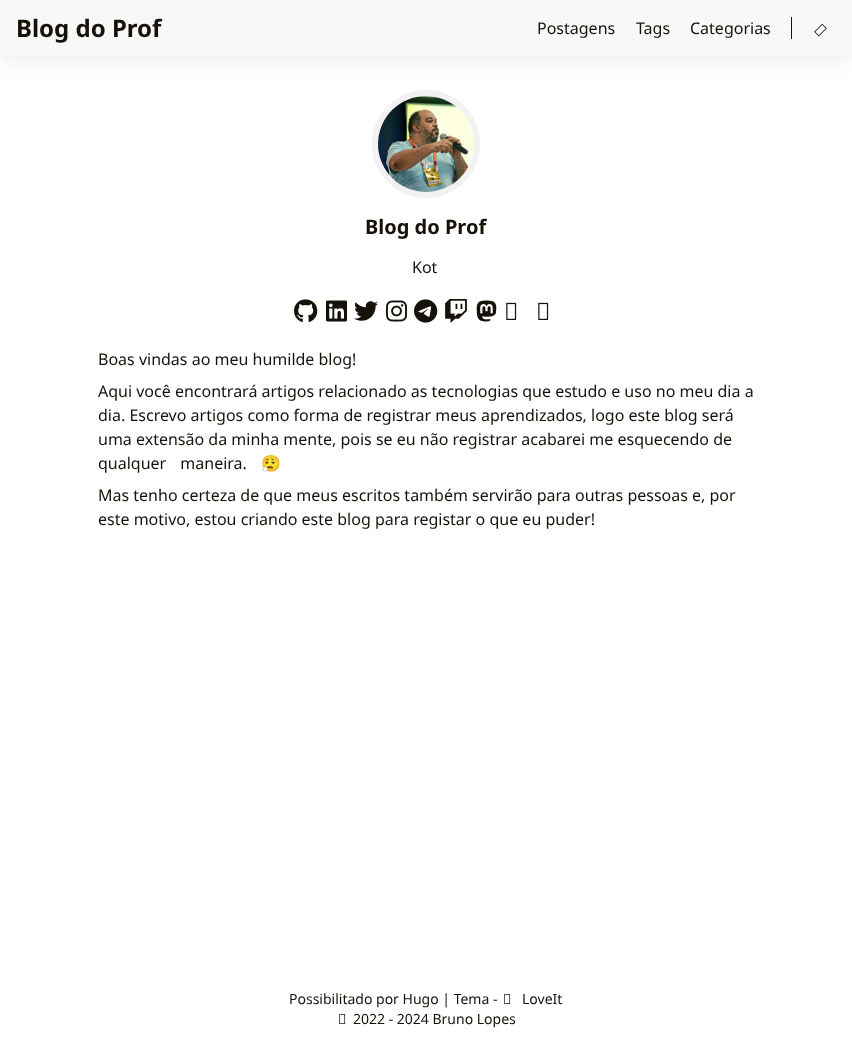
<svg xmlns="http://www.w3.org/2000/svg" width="852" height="1037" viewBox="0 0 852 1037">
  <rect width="100%" height="100%" fill="rgb(255,255,255)"/>
  <circle cx="426" cy="144" r="51" fill="none" stroke="rgb(242,242,242)" stroke-width="6"/>
  <rect x="0" y="0" width="852" height="56" fill="rgba(0,0,0,0.1)" filter="blur(12px)"/>
  <rect x="0" y="0" width="852" height="56" fill="rgb(248,248,248)"/>
  <text x="16" y="37" font-family="Noto Sans" font-size="24" font-weight="bold" fill="rgb(22,18,9)">Blog do Prof</text>
  <g font-family="Noto Sans" font-size="16" fill="rgb(22,18,9)">
    <text x="537" y="34">Postagens</text>
    <text x="636" y="34">Tags</text>
    <text x="690" y="34">Categorias</text>
  </g>
  <rect x="791" y="17" width="1" height="22" fill="rgb(22,18,9)"/>
  <image x="814" y="23" width="13" height="14" href="pic1.png"/>
  <image x="378" y="96" width="96" height="96" href="pic2.png"/>
  <text x="365" y="234" font-family="Noto Sans" font-size="20" font-weight="bold" fill="rgb(22,18,9)">Blog do Prof</text>
  <text x="412" y="273" font-family="Noto Sans" font-size="16" fill="rgb(22,18,9)">Kot</text>
  <image x="294" y="299" width="24" height="23" href="pic3.png"/>
  <image x="326" y="300" width="21" height="22" href="pic4.png"/>
  <image x="354" y="301" width="24" height="20" href="pic5.png"/>
  <image x="386" y="300" width="21" height="22" href="pic6.png"/>
  <image x="414" y="299" width="24" height="24" href="pic7.png"/>
  <image x="445" y="299" width="22" height="24" href="pic8.png"/>
  <image x="476" y="300" width="21" height="22" href="pic9.png"/>
  <image x="506" y="302" width="11" height="18" href="pic10.png"/>
  <image x="538" y="302" width="11" height="18" href="pic10.png"/>
  <g font-family="Noto Sans" font-size="16" fill="rgb(22,18,9)">
    <text x="98" y="365">Boas vindas ao meu humilde blog!</text>
    <text>
      <tspan x="98" y="397">Aqui você encontrará artigos relacionado as tecnologias que estudo e uso no meu dia a</tspan>
      <tspan x="98" y="421">dia. Escrevo artigos como forma de registrar meus aprendizados, logo este blog será</tspan>
      <tspan x="98" y="445">uma extensão da minha mente, pois se eu não registrar acabarei me esquecendo de</tspan>
      <tspan x="98" y="469" word-spacing="10">qualquer maneira.</tspan>
    </text>
  </g>
  <text x="261" y="469" font-family="Noto Color Emoji" font-size="16" fill="rgb(22,18,9)">😮‍💨</text>
  <g font-family="Noto Sans" font-size="16" fill="rgb(22,18,9)">
    <text>
      <tspan x="98" y="501">Mas tenho certeza de que meus escritos também servirão para outras pessoas e, por</tspan>
      <tspan x="98" y="525">este motivo, estou criando este blog para registar o que eu puder!</tspan>
    </text>
  </g>
  <text x="289" y="1004" font-family="Noto Sans" font-size="14" fill="rgb(22,18,9)">Possibilitado por Hugo | Tema -</text>
  <image x="504" y="994" width="7" height="10" href="pic11.png"/>
  <text x="522" y="1004" font-family="Noto Sans" font-size="14" fill="rgb(22,18,9)">LoveIt</text>
  <image x="339" y="1014" width="7" height="10" href="pic11.png"/>
  <text x="353" y="1024" font-family="Noto Sans" font-size="14" fill="rgb(22,18,9)">2022 - 2024 Bruno Lopes</text>
</svg>
